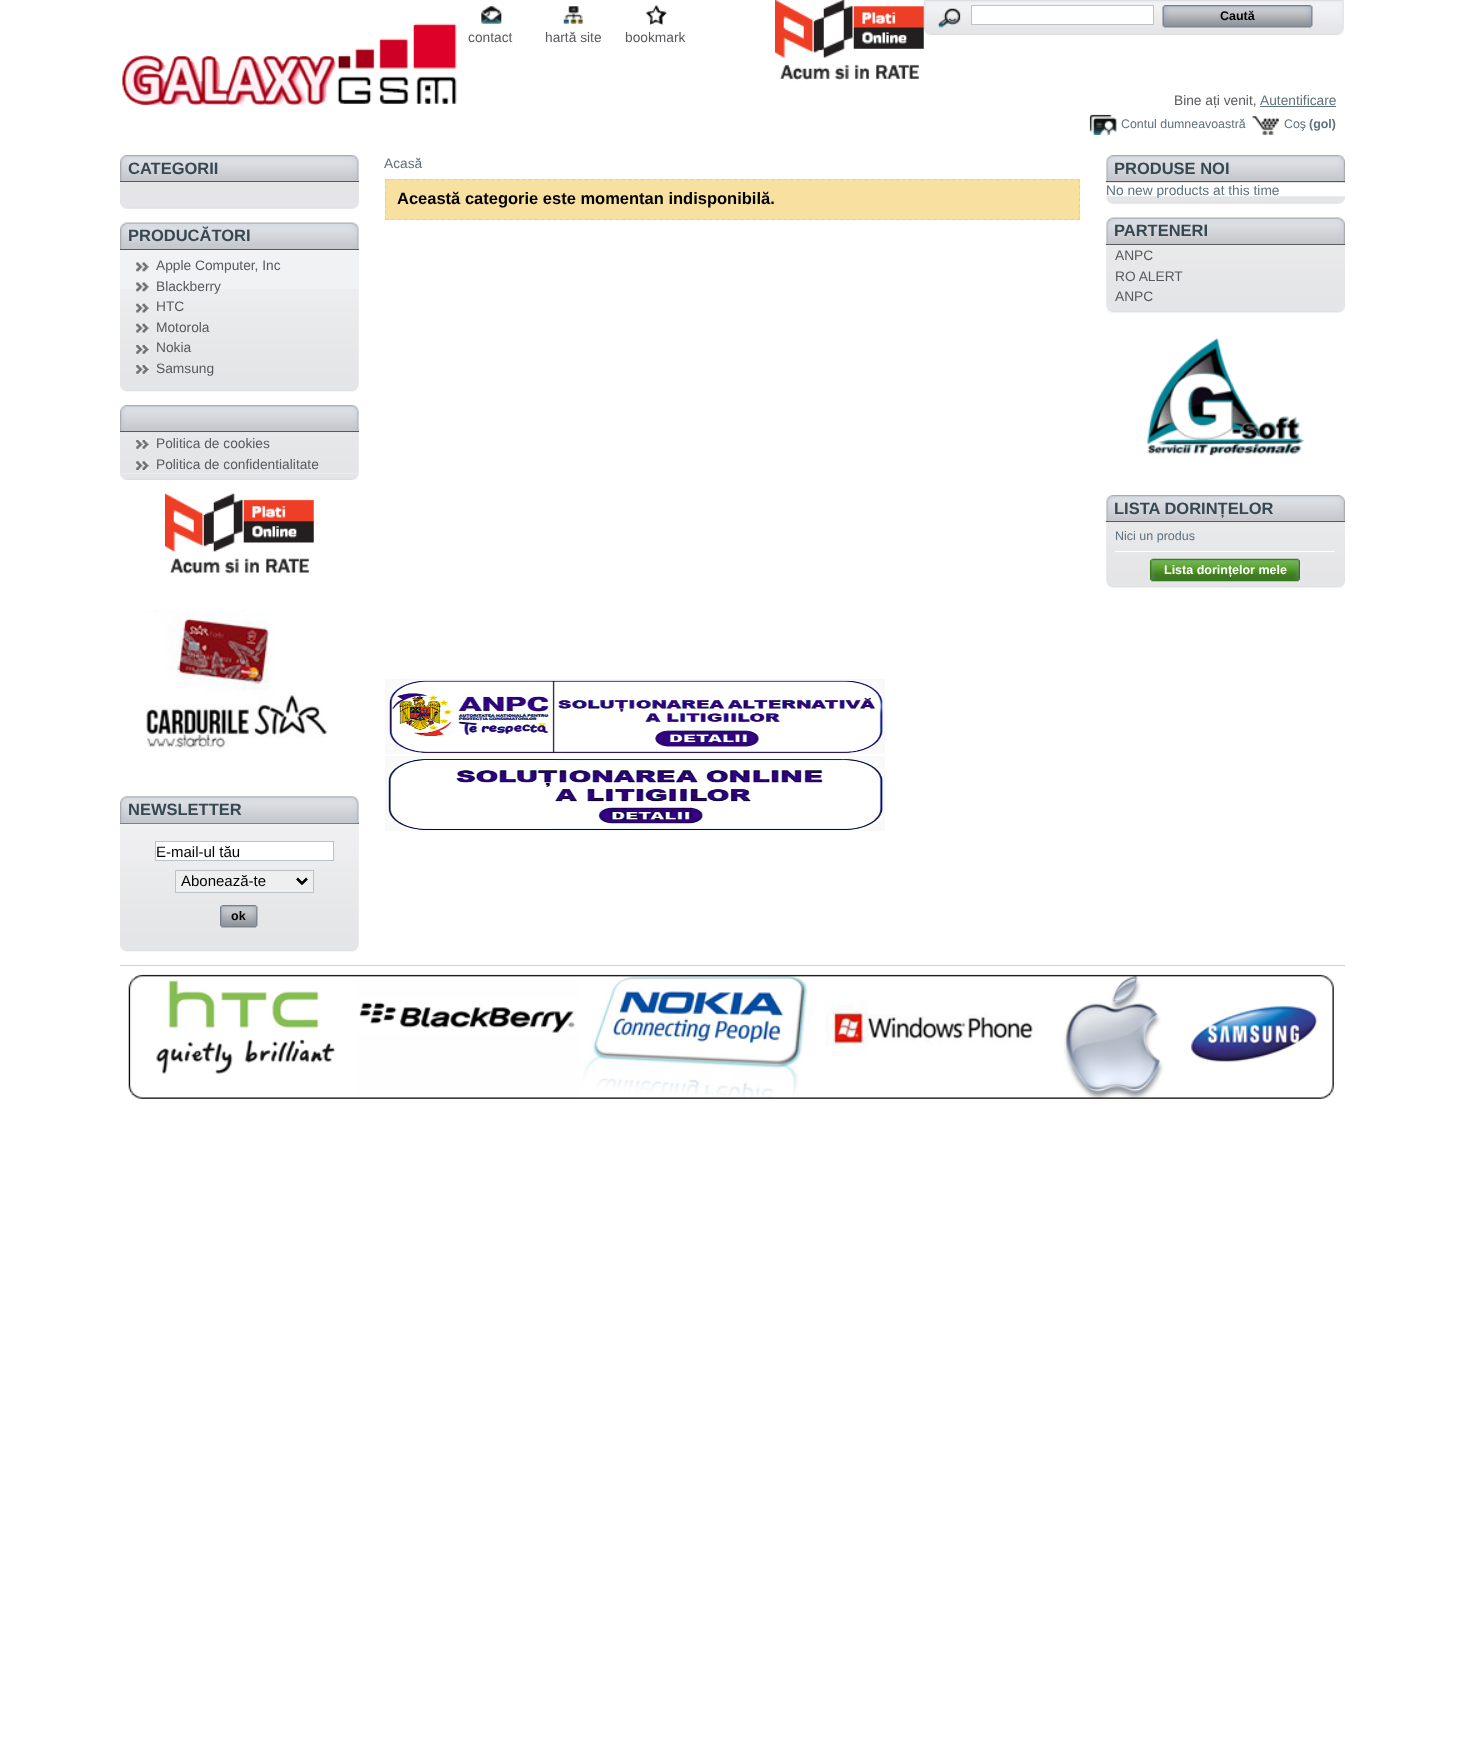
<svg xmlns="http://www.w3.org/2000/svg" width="1463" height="1742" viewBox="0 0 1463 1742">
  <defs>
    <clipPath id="clip1"><rect x="385" y="155" width="695" height="73"/></clipPath>
  </defs>
  <rect width="100%" height="100%" fill="rgb(255,255,255)"/>
  <image x="121" y="23" width="336" height="82" href="pic1.png"/>
  <image x="923" y="0" width="421" height="35" href="pic3.png"/>
  <image x="775" y="0" width="149" height="81" href="pic2.png"/>
  <image x="938" y="8" width="23" height="20" href="pic4.png"/>
  <rect x="971.5" y="5.5" width="182" height="19" fill="rgb(255,255,255)" stroke="rgb(189,194,201)"/>
  <rect x="1163" y="5" width="150" height="23" fill="rgb(239,239,239)"/>
  <image x="1162" y="5" width="151" height="23" href="pic5.png"/>
  <text x="1220" y="20" font-family="Liberation Sans" font-size="12.5" font-weight="bold" fill="rgb(0,0,0)">Caută</text>
  <image x="481" y="6" width="21" height="18" href="pic6.png"/>
  <text x="468" y="42" font-family="Liberation Sans" font-size="13.75" fill="rgb(89,90,94)">contact</text>
  <image x="563" y="6" width="20" height="18" href="pic7.png"/>
  <text x="545" y="42" font-family="Liberation Sans" font-size="13.75" fill="rgb(89,90,94)">hartă site</text>
  <image x="646" y="5" width="21" height="20" href="pic8.png"/>
  <g font-family="Liberation Sans" font-size="13.75" fill="rgb(89,90,94)">
    <text x="625" y="42">bookmark</text>
    <text x="1174" y="105">Bine ați venit,</text>
  </g>
  <text x="1260" y="105" font-family="Liberation Sans" font-size="13.75" fill="rgb(93,113,126)">Autentificare</text>
  <rect x="1260" y="106" width="76" height="1" fill="rgb(93,113,126)"/>
  <image x="1089" y="114" width="28" height="21" href="pic9.png"/>
  <text x="1121" y="128" font-family="Liberation Sans" font-size="12.4" fill="rgb(93,113,126)">Contul dumneavoastră</text>
  <image x="1252" y="116" width="27" height="19" href="pic10.png"/>
  <text x="1284" y="128" font-family="Liberation Sans" font-size="12.4" fill="rgb(93,113,126)">Coş</text>
  <text x="1309" y="128" font-family="Liberation Sans" font-size="12.4" font-weight="bold" fill="rgb(93,113,126)">(gol)</text>
  <image x="120" y="203" width="239" height="6" href="pic11.png"/>
  <image x="120" y="155" width="239" height="26" href="pic12.png"/>
  <rect x="120" y="181" width="239" height="1" fill="rgb(89,90,94)"/>
  <text x="128" y="174" font-family="Liberation Sans" font-size="16.5" font-weight="bold" fill="rgb(55,72,83)">CATEGORII</text>
  <rect x="120" y="182" width="239" height="21" fill="rgb(229,229,231)"/>
  <image x="120" y="385" width="239" height="7" href="pic13.png"/>
  <image x="120" y="222" width="239" height="27" href="pic14.png"/>
  <rect x="120" y="249" width="239" height="1" fill="rgb(89,90,94)"/>
  <text x="128" y="241" font-family="Liberation Sans" font-size="16.5" font-weight="bold" fill="rgb(55,72,83)">PRODUCĂTORI</text>
  <rect x="120" y="250" width="239" height="135" fill="rgb(241,242,244)"/>
  <image x="120" y="289" width="239" height="96" href="pic15.png"/>
  <image x="136" y="262" width="13" height="10" href="pic16.png"/>
  <text x="156" y="270" font-family="Liberation Sans" font-size="13.75" fill="rgb(89,90,94)">Apple Computer, Inc</text>
  <image x="136" y="282" width="13" height="10" href="pic17.png"/>
  <text x="156" y="291" font-family="Liberation Sans" font-size="13.75" fill="rgb(89,90,94)">Blackberry</text>
  <image x="136" y="303" width="13" height="10" href="pic18.png"/>
  <text x="156" y="311" font-family="Liberation Sans" font-size="13.75" fill="rgb(89,90,94)">HTC</text>
  <image x="136" y="323" width="13" height="10" href="pic19.png"/>
  <text x="156" y="332" font-family="Liberation Sans" font-size="13.75" fill="rgb(89,90,94)">Motorola</text>
  <image x="136" y="345" width="13" height="9" href="pic20.png"/>
  <text x="156" y="352" font-family="Liberation Sans" font-size="13.75" fill="rgb(89,90,94)">Nokia</text>
  <image x="136" y="365" width="13" height="9" href="pic21.png"/>
  <text x="156" y="373" font-family="Liberation Sans" font-size="13.75" fill="rgb(89,90,94)">Samsung</text>
  <image x="120" y="474" width="239" height="6" href="pic22.png"/>
  <image x="120" y="405" width="239" height="28" href="pic23.png"/>
  <rect x="120" y="431" width="239" height="1" fill="rgb(89,90,94)"/>
  <rect x="120" y="433" width="239" height="41" fill="rgb(241,242,244)"/>
  <image x="120" y="432" width="239" height="42" href="pic24.png"/>
  <image x="136" y="440" width="13" height="9" href="pic25.png"/>
  <text x="156" y="448" font-family="Liberation Sans" font-size="13.75" fill="rgb(89,90,94)">Politica de cookies</text>
  <image x="136" y="461" width="13" height="9" href="pic26.png"/>
  <text x="156" y="469" font-family="Liberation Sans" font-size="13.75" fill="rgb(89,90,94)">Politica de confidentialitate</text>
  <image x="165" y="493" width="149" height="81" href="pic27.png"/>
  <image x="146" y="610" width="182" height="141" href="pic28.png"/>
  <image x="120" y="945" width="239" height="7" href="pic13.png"/>
  <image x="120" y="796" width="239" height="27" href="pic29.png"/>
  <rect x="120" y="823" width="239" height="1" fill="rgb(89,90,94)"/>
  <text x="128" y="815" font-family="Liberation Sans" font-size="16.5" font-weight="bold" fill="rgb(55,72,83)">NEWSLETTER</text>
  <rect x="358" y="824" width="1" height="121" fill="rgb(241,242,244)"/>
  <image x="120" y="823" width="239" height="122" href="pic30.png"/>
  <rect x="155.5" y="841.5" width="178" height="19" fill="rgb(255,255,255)" stroke="rgb(189,194,201)"/>
  <text x="156" y="857" font-family="Liberation Sans" font-size="15" fill="rgb(0,0,0)">E-mail-ul tău</text>
  <rect x="175.5" y="870.5" width="138" height="22" fill="rgb(239,239,239)" stroke="rgb(189,194,201)"/>
  <path d="M297 878.5L302 883.5L307 878.5" fill="none" stroke="rgb(0,0,0)" stroke-width="2.5"/>
  <text x="181" y="886" font-family="Liberation Sans" font-size="15" fill="rgb(0,0,0)">Abonează-te</text>
  <rect x="220" y="905" width="38" height="23" fill="rgb(239,239,239)"/>
  <image x="220" y="905" width="38" height="23" href="pic31.png"/>
  <text x="231" y="920" font-family="Liberation Sans" font-size="12.5" font-weight="bold" fill="rgb(0,0,0)">ok</text>
  <text x="384" y="168" font-family="Liberation Sans" font-size="13.75" fill="rgb(93,113,126)">Acasă</text>
  <rect x="385" y="179" width="695" height="41" fill="rgb(248,225,160)"/>
  <path d="M385 179.5H1080" fill="none" stroke="rgb(249,228,0)" stroke-width="1.2" stroke-dasharray="3.75 2.48"/>
  <g clip-path="url(#clip1)">
    <path d="M1079.5 179V220" fill="none" stroke="rgb(249,228,0)" stroke-width="1.2" stroke-dasharray="3.75 2.5"/>
  </g>
  <path d="M385 219.5H1080" fill="none" stroke="rgb(249,228,0)" stroke-width="1.2" stroke-dasharray="3.75 2.48"/>
  <g clip-path="url(#clip1)">
    <path d="M385.5 179V220" fill="none" stroke="rgb(249,228,0)" stroke-width="1.2" stroke-dasharray="3.75 2.5"/>
  </g>
  <text x="397" y="204" font-family="Liberation Sans" font-size="16.5" font-weight="bold" fill="rgb(0,0,0)">Această categorie este momentan indisponibilă.</text>
  <image x="1106" y="196" width="239" height="8" href="pic32.png"/>
  <image x="1106" y="155" width="239" height="28" href="pic33.png"/>
  <rect x="1106" y="181" width="239" height="1" fill="rgb(89,90,94)"/>
  <text x="1114" y="174" font-family="Liberation Sans" font-size="16.5" font-weight="bold" fill="rgb(55,72,83)">PRODUSE NOI</text>
  <text x="1106" y="195" font-family="Liberation Sans" font-size="13.75" fill="rgb(93,113,126)">No new products at this time</text>
  <image x="1106" y="306" width="239" height="7" href="pic34.png"/>
  <image x="1106" y="217" width="239" height="27" href="pic35.png"/>
  <rect x="1106" y="244" width="239" height="1" fill="rgb(89,90,94)"/>
  <text x="1114" y="236" font-family="Liberation Sans" font-size="16.5" font-weight="bold" fill="rgb(55,72,83)">PARTENERI</text>
  <rect x="1106" y="245" width="1" height="61" fill="rgb(241,242,244)"/>
  <image x="1106" y="245" width="239" height="61" href="pic36.png"/>
  <g font-family="Liberation Sans" font-size="13.75" fill="rgb(89,90,94)">
    <text>
      <tspan x="1115" y="260">ANPC</tspan>
      <tspan x="1115" y="281">RO ALERT</tspan>
      <tspan x="1115" y="301">ANPC</tspan>
    </text>
  </g>
  <image x="1147" y="338" width="157" height="118" href="pic37.png"/>
  <image x="1106" y="581" width="239" height="7" href="pic34.png"/>
  <image x="1106" y="495" width="239" height="28" href="pic33.png"/>
  <rect x="1106" y="521" width="239" height="1" fill="rgb(89,90,94)"/>
  <text x="1114" y="514" font-family="Liberation Sans" font-size="16.5" font-weight="bold" fill="rgb(55,72,83)">LISTA DORINȚELOR</text>
  <rect x="1106" y="523" width="1" height="58" fill="rgb(241,242,244)"/>
  <image x="1106" y="522" width="239" height="59" href="pic38.png"/>
  <rect x="1115" y="551" width="220" height="1" fill="rgb(255,255,255)"/>
  <text x="1115" y="540" font-family="Liberation Sans" font-size="12.5" fill="rgb(93,113,126)">Nici un produs</text>
  <image x="1150" y="558" width="150" height="24" href="pic39.png"/>
  <text x="1164" y="574" font-family="Liberation Sans" font-size="12.5" font-weight="bold" fill="rgb(255,255,255)">Lista dorințelor mele</text>
  <image x="385" y="679" width="500" height="75" href="pic40.png"/>
  <image x="385" y="756" width="500" height="75" href="pic41.png"/>
  <rect x="120" y="965" width="1225" height="1" fill="rgb(208,211,216)"/>
  <image x="128" y="974" width="1206" height="125" href="pic42.png"/>
</svg>
